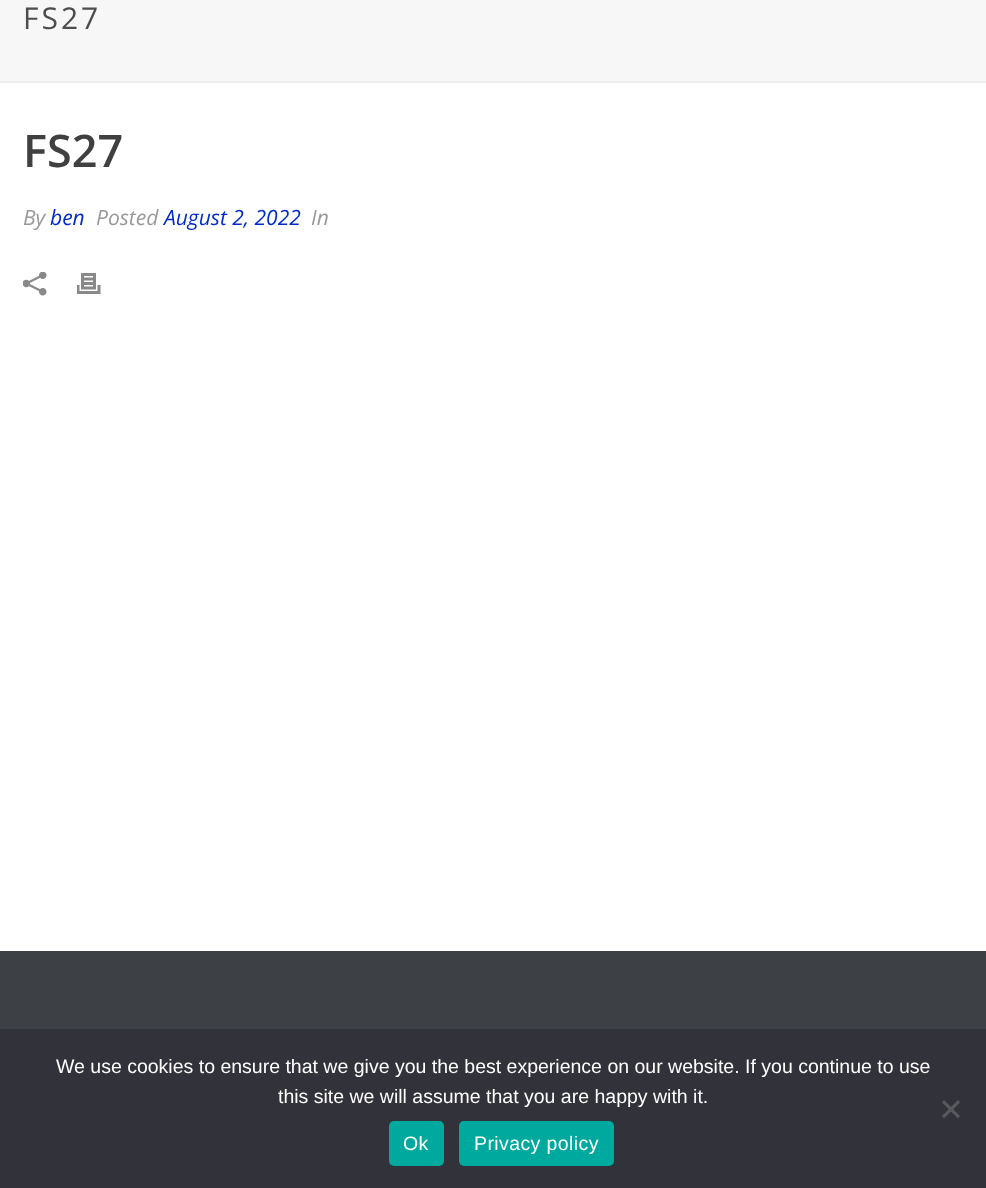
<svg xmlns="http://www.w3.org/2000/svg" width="986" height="1188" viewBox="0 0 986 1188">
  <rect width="100%" height="100%" fill="rgb(255,255,255)"/>
  <rect x="0" y="0" width="986" height="81" fill="rgb(247,247,247)"/>
  <rect x="0" y="81" width="986" height="2" fill="rgb(237,237,237)"/>
  <text x="23" y="29" font-family="Open Sans" font-size="30" letter-spacing="3" fill="rgb(77,77,77)">FS27</text>
  <text x="23" y="167" font-family="Open Sans" font-size="45" font-weight="600" fill="rgb(64,64,64)">FS27</text>
  <text x="23" y="225" font-family="Open Sans" font-size="21" font-style="italic" fill="rgb(153,153,153)">By</text>
  <text x="50" y="225" font-family="Open Sans" font-size="21" font-style="italic" fill="rgb(0,43,201)">ben</text>
  <text x="96" y="225" font-family="Open Sans" font-size="21" font-style="italic" fill="rgb(153,153,153)">Posted</text>
  <text x="164" y="225" font-family="Open Sans" font-size="21" font-style="italic" fill="rgb(0,43,201)">August 2, 2022</text>
  <text x="311" y="225" font-family="Open Sans" font-size="21" font-style="italic" fill="rgb(153,153,153)">In</text>
  <image x="23" y="272" width="24" height="24" href="pic1.png"/>
  <image x="77" y="273" width="24" height="21" href="pic2.png"/>
  <rect x="0" y="951" width="986" height="78" fill="rgb(61,64,69)"/>
  <rect x="0" y="1029" width="986" height="159" fill="rgb(50,50,58)"/>
  <g font-family="Liberation Sans" font-size="19.5" fill="rgb(255,255,255)">
    <text x="56" y="1073">We use cookies to ensure that we give you the best experience on our website. If you continue to use</text>
    <text x="278" y="1103">this site we will assume that you are happy with it.</text>
  </g>
  <path d="M958 1100L960 1102.5L944 1118.5L942 1116Z" fill="rgb(89,89,93)"/>
  <path d="M942 1102.5L944 1100L960 1116L958 1118.5Z" fill="rgb(89,89,93)"/>
  <rect x="389" y="1121" width="55" height="45" rx="5" fill="rgb(0,169,157)"/>
  <text x="403" y="1150" font-family="Liberation Sans" font-size="19.5" letter-spacing="0.4" fill="rgb(255,255,255)">Ok</text>
  <rect x="459" y="1121" width="155" height="45" rx="5" fill="rgb(0,169,157)"/>
  <text x="474" y="1150" font-family="Liberation Sans" font-size="19.5" letter-spacing="0.4" fill="rgb(255,255,255)">Privacy policy</text>
</svg>
